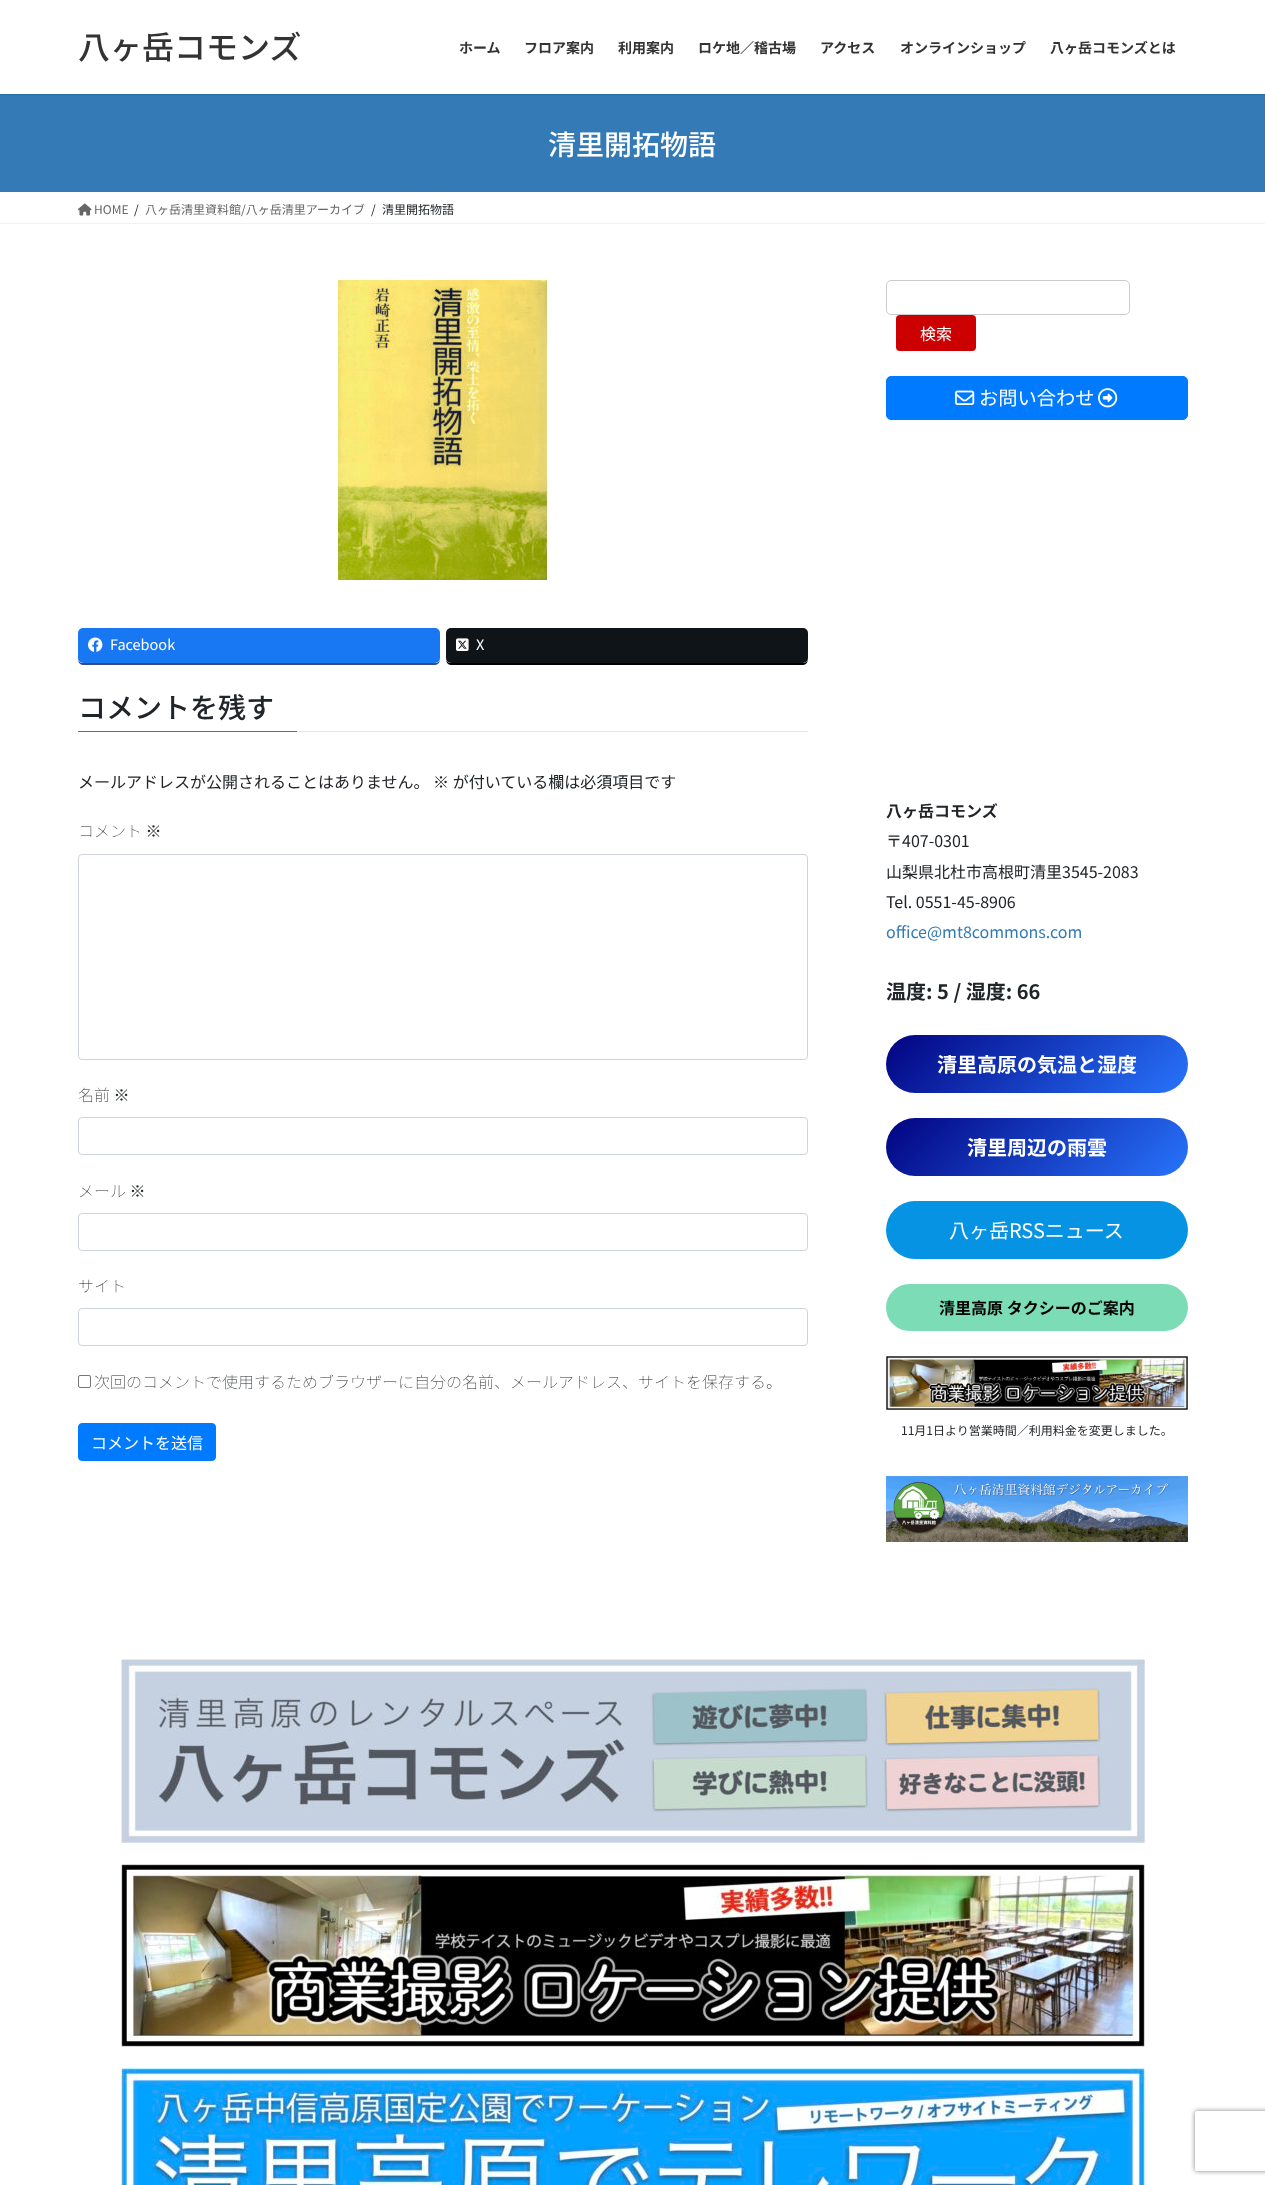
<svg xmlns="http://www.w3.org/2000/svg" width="1265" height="2185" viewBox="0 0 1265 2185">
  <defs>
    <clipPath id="clip1"><rect x="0" y="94" width="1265" height="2"/></clipPath>
    <linearGradient id="g1" gradientUnits="userSpaceOnUse" x1="947" y1="974" x2="1127" y2="1154"><stop offset="0" stop-color="rgb(2,3,129)"/><stop offset="1" stop-color="rgb(40,116,252)"/></linearGradient>
    <linearGradient id="g2" gradientUnits="userSpaceOnUse" x1="947" y1="1057" x2="1127" y2="1237"><stop offset="0" stop-color="rgb(2,3,129)"/><stop offset="1" stop-color="rgb(40,116,252)"/></linearGradient>
    <clipPath id="clip2"><path d="M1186 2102H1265V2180H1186ZM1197 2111H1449C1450 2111 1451 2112 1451 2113V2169C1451 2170 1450 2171 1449 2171H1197C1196 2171 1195 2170 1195 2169V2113C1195 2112 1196 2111 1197 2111Z" clip-rule="evenodd"/></clipPath>
  </defs>
  <rect width="100%" height="100%" fill="rgb(255,255,255)"/>
  <rect x="0" y="94" width="1265" height="98" fill="rgb(51,122,183)"/>
  <g clip-path="url(#clip1)">
    <rect x="0" y="1" width="1265" height="94" fill="rgba(0,0,0,0.1)" filter="blur(1.5px)"/>
  </g>
  <text x="78" y="59" font-family="Noto Sans JP" font-size="32" font-weight="500" fill="rgb(51,51,51)">八ヶ岳コモンズ</text>
  <g font-family="Noto Sans JP" font-size="14" font-weight="bold" fill="rgb(51,51,51)">
    <text x="459" y="53">ホーム</text>
    <text x="524" y="53">フロア案内</text>
    <text x="618" y="53">利用案内</text>
    <text x="698" y="53">ロケ地／稽古場</text>
    <text x="820" y="53">アクセス</text>
    <text x="900" y="53">オンラインショップ</text>
    <text x="1050" y="53">八ヶ岳コモンズとは</text>
  </g>
  <text x="548" y="155" font-family="Noto Sans JP" font-size="28" font-weight="500" fill="rgb(255,255,255)">清里開拓物語</text>
  <rect x="0" y="223" width="1265" height="1" fill="rgb(242,242,242)"/>
  <image x="78" y="203" width="14" height="13" href="pic1.png"/>
  <text x="94" y="214" font-family="Noto Sans JP" font-size="12" fill="rgb(102,102,102)">HOME</text>
  <text x="134" y="214" font-family="Noto Sans JP" font-size="12" fill="rgb(33,37,41)">/</text>
  <text x="145" y="214" font-family="Noto Sans JP" font-size="12" fill="rgb(102,102,102)">八ヶ岳清里資料館/八ヶ岳清里アーカイブ</text>
  <g font-family="Noto Sans JP" font-size="12" fill="rgb(33,37,41)">
    <text x="371" y="214">/</text>
    <text x="382" y="214">清里開拓物語</text>
  </g>
  <image x="338" y="280" width="209" height="300" href="pic2.png"/>
  <path d="M78 658C78 661 79 665 83 665H435C439 665 440 661 440 658C440 661 438 663 435 663H83C80 663 78 661 78 658Z" fill="rgb(52,78,132)"/>
  <rect x="78" y="628" width="362" height="35" rx="5" fill="rgb(24,119,242)"/>
  <image x="88" y="637" width="15" height="15" href="pic3.png"/>
  <text x="110" y="650" font-family="Noto Sans JP" font-size="14.5" fill="rgb(255,255,255)">Facebook</text>
  <path d="M446 658C446 661 447 665 451 665H803C807 665 808 661 808 658C808 661 806 663 803 663H451C448 663 446 661 446 658Z" fill="rgb(0,0,0)"/>
  <rect x="446" y="628" width="362" height="35" rx="5" fill="rgb(15,20,25)"/>
  <image x="456" y="638" width="13" height="13" href="pic4.png"/>
  <text x="476" y="650" font-family="Noto Sans JP" font-size="14.5" fill="rgb(255,255,255)">X</text>
  <rect x="297" y="731" width="511" height="1" fill="rgb(230,230,230)"/>
  <text x="78" y="718" font-family="Noto Sans JP" font-size="28" font-weight="500" fill="rgb(33,37,41)">コメントを残す</text>
  <rect x="78" y="731" width="219" height="1" fill="rgb(51,122,183)"/>
  <text x="78" y="788" font-family="Noto Sans JP" font-size="16" fill="rgb(33,37,41)">メールアドレスが公開されることはありません。 ※ が付いている欄は必須項目です</text>
  <text x="78" y="837" font-family="Noto Sans JP" font-size="16" font-weight="100" fill="rgb(33,37,41)">コメント ※</text>
  <rect x="78.5" y="854.5" width="729" height="205" rx="3.5" fill="none" stroke="rgb(206,212,218)"/>
  <text x="78" y="1101" font-family="Noto Sans JP" font-size="16" font-weight="100" fill="rgb(33,37,41)">名前 ※</text>
  <rect x="78.5" y="1117.5" width="729" height="37" rx="3.5" fill="none" stroke="rgb(206,212,218)"/>
  <text x="78" y="1197" font-family="Noto Sans JP" font-size="16" font-weight="100" fill="rgb(33,37,41)">メール ※</text>
  <rect x="78.5" y="1213.5" width="729" height="37" rx="3.5" fill="none" stroke="rgb(206,212,218)"/>
  <text x="78" y="1292" font-family="Noto Sans JP" font-size="16" font-weight="100" fill="rgb(33,37,41)">サイト</text>
  <rect x="78.5" y="1308.5" width="729" height="37" rx="3.5" fill="none" stroke="rgb(206,212,218)"/>
  <rect x="78.5" y="1375.5" width="12" height="12" rx="1.5" fill="none" stroke="rgb(118,118,118)"/>
  <text x="94" y="1388" font-family="Noto Sans JP" font-size="16" font-weight="100" fill="rgb(33,37,41)">次回のコメントで使用するためブラウザーに自分の名前、メールアドレス、サイトを保存する。</text>
  <rect x="78.5" y="1423.5" width="137" height="37" rx="3.5" fill="rgb(0,123,255)" stroke="rgb(0,123,255)"/>
  <text x="91" y="1449" font-family="Noto Sans JP" font-size="16" fill="rgb(255,255,255)">コメントを送信</text>
  <rect x="886.5" y="280.5" width="243" height="34" rx="4.5" fill="none" stroke="rgb(204,204,204)"/>
  <rect x="896" y="315" width="80" height="36" rx="4" fill="rgb(204,0,0)"/>
  <text x="920" y="340" font-family="Noto Sans JP" font-size="16" fill="rgb(255,255,255)">検索</text>
  <rect x="886.5" y="376.5" width="301" height="43" rx="4.5" fill="rgb(0,123,255)" stroke="rgb(0,123,255)"/>
  <image x="955" y="390" width="20" height="15" href="pic5.png"/>
  <text x="979" y="405" font-family="Noto Sans JP" font-size="19.25" fill="rgb(255,255,255)">お問い合わせ</text>
  <image x="1098" y="388" width="20" height="20" href="pic6.png"/>
  <text x="886" y="817" font-family="Noto Sans JP" font-size="16" font-weight="bold" fill="rgb(33,37,41)">八ヶ岳コモンズ</text>
  <g font-family="Noto Sans JP" font-size="16" fill="rgb(33,37,41)">
    <text>
      <tspan x="886" y="847">〒407-0301</tspan>
      <tspan x="886" y="878">山梨県北杜市高根町清里3545-2083</tspan>
      <tspan x="886" y="908">Tel. 0551-45-8906</tspan>
    </text>
  </g>
  <text x="886" y="938" font-family="Noto Sans JP" font-size="16" fill="rgb(51,122,183)">office@mt8commons.com</text>
  <text x="886" y="999" font-family="Noto Sans JP" font-size="20" font-weight="bold" fill="rgb(33,37,41)">温度: 5 / 湿度: 66</text>
  <rect x="886" y="1035" width="302" height="58" rx="29" fill="url(#g1)"/>
  <text x="937" y="1072" font-family="Noto Sans JP" font-size="20" font-weight="bold" fill="rgb(255,255,255)">清里高原の気温と湿度</text>
  <rect x="886" y="1118" width="302" height="58" rx="29" fill="url(#g2)"/>
  <text x="967" y="1155" font-family="Noto Sans JP" font-size="20" font-weight="bold" fill="rgb(255,255,255)">清里周辺の雨雲</text>
  <rect x="886" y="1201" width="302" height="58" rx="29" fill="rgb(6,147,227)"/>
  <text x="949" y="1238" font-family="Noto Sans JP" font-size="20" fill="rgb(255,255,255)">八ヶ岳RSSニュース</text>
  <rect x="886" y="1284" width="302" height="47" rx="23.5" fill="rgb(123,220,181)"/>
  <text x="939" y="1314" font-family="Noto Sans JP" font-size="16" font-weight="bold" fill="rgb(0,0,0)">清里高原 タクシーのご案内</text>
  <image x="886" y="1356" width="302" height="54" href="pic7.png"/>
  <text x="901" y="1435" font-family="Noto Sans JP" font-size="12" fill="rgb(33,37,41)">11月1日より営業時間／利用料金を変更しました。</text>
  <image x="886" y="1476" width="302" height="66" href="pic8.png"/>
  <image x="121" y="1659" width="1024" height="184" href="pic9.png"/>
  <image x="121" y="1864" width="1024" height="183" href="pic10.png"/>
  <image x="121" y="2068" width="1024" height="117" href="pic11.png"/>
  <g clip-path="url(#clip2)">
    <rect x="1195" y="2111" width="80" height="60" rx="2" fill="rgb(128,128,128)" filter="blur(2.5px)"/>
  </g>
</svg>
